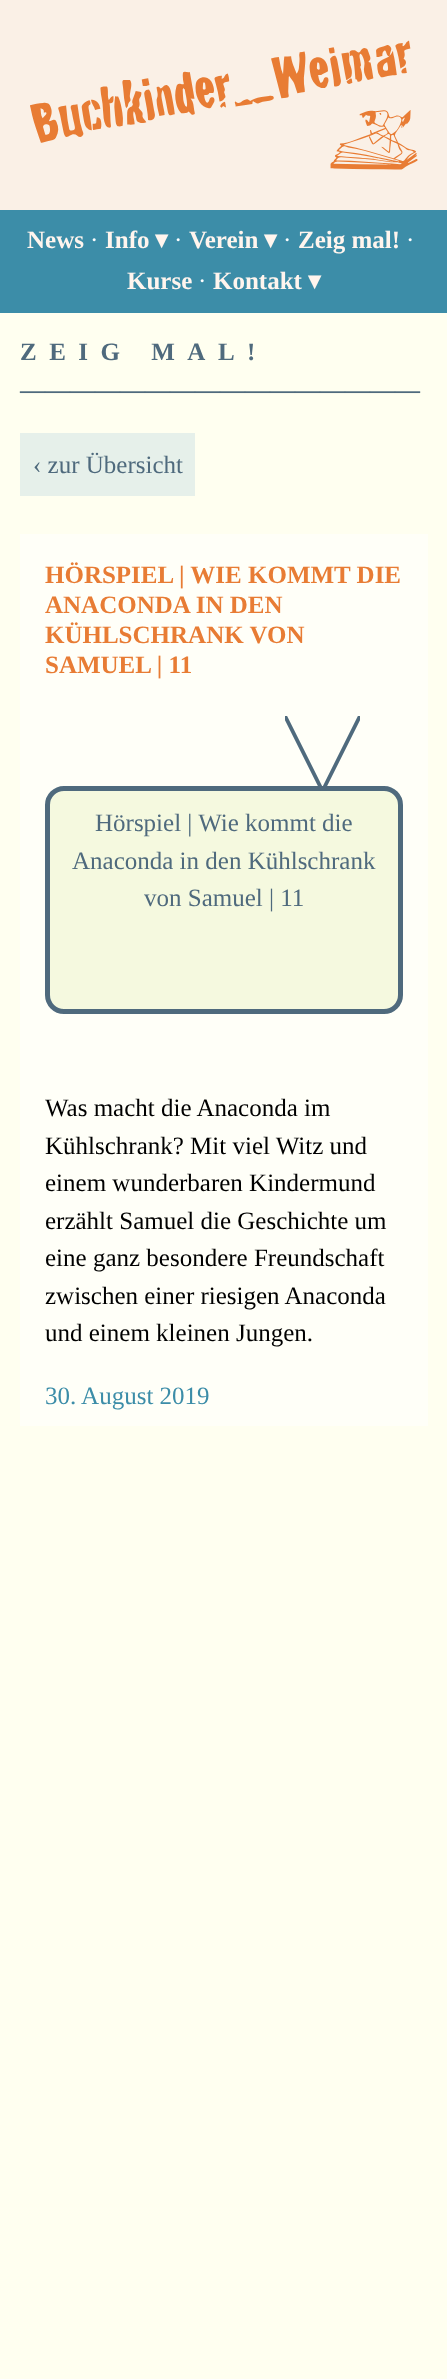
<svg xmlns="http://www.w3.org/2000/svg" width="447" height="2379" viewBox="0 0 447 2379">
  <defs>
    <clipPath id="clip1"><rect x="285" y="716" width="75" height="75"/></clipPath>
  </defs>
  <rect width="100%" height="100%" fill="rgb(255,255,240)"/>
  <rect x="0" y="0" width="447" height="210" fill="rgb(250,240,230)"/>
  <image x="30" y="40" width="388" height="130" href="pic1.png"/>
  <rect x="0" y="210" width="447" height="103" fill="rgb(60,141,168)"/>
  <text x="27" y="248" font-family="Liberation Serif" font-size="25" font-weight="bold" fill="rgb(255,245,238)">News</text>
  <text x="90" y="248" font-family="Liberation Serif" font-size="25" fill="rgb(255,255,255)">·</text>
  <text x="105" y="248" font-family="Liberation Serif" font-size="25" font-weight="bold" fill="rgb(255,245,238)">Info</text>
  <text x="155" y="248" font-family="DejaVu Sans" font-size="25" font-weight="bold" fill="rgb(255,245,238)">▾</text>
  <text x="174" y="248" font-family="Liberation Serif" font-size="25" fill="rgb(255,255,255)">·</text>
  <text x="189" y="248" font-family="Liberation Serif" font-size="25" font-weight="bold" fill="rgb(255,245,238)">Verein</text>
  <text x="264" y="248" font-family="DejaVu Sans" font-size="25" font-weight="bold" fill="rgb(255,245,238)">▾</text>
  <text x="283" y="248" font-family="Liberation Serif" font-size="25" fill="rgb(255,255,255)">·</text>
  <text x="298" y="248" font-family="Liberation Serif" font-size="25" font-weight="bold" fill="rgb(255,245,238)">Zeig mal!</text>
  <text x="406" y="248" font-family="Liberation Serif" font-size="25" fill="rgb(255,255,255)">·</text>
  <text x="127" y="289" font-family="Liberation Serif" font-size="25" font-weight="bold" fill="rgb(255,245,238)">Kurse</text>
  <text x="198" y="289" font-family="Liberation Serif" font-size="25" fill="rgb(255,255,255)">·</text>
  <text x="213" y="289" font-family="Liberation Serif" font-size="25" font-weight="bold" fill="rgb(255,245,238)">Kontakt</text>
  <text x="308" y="289" font-family="DejaVu Sans" font-size="25" font-weight="bold" fill="rgb(255,245,238)">▾</text>
  <text x="20" y="360" font-family="Liberation Serif" font-size="25" font-weight="bold" letter-spacing="12.5" fill="rgb(79,106,125)">ZEIG MAL!</text>
  <text x="20" y="398" font-family="Liberation Serif" font-size="25" font-weight="bold" fill="rgb(79,106,125)">————————————————</text>
  <rect x="20" y="433" width="175" height="63" fill="rgb(230,240,234)"/>
  <text x="33" y="473" font-family="Liberation Serif" font-size="25" fill="rgb(79,106,125)">‹ zur Übersicht</text>
  <rect x="20" y="534" width="408" height="892" fill="rgb(255,255,248)"/>
  <g font-family="Liberation Serif" font-size="25" font-weight="bold" fill="rgb(232,124,52)">
    <text>
      <tspan x="45" y="583">HÖRSPIEL | WIE KOMMT DIE</tspan>
      <tspan x="45" y="613">ANACONDA IN DEN</tspan>
      <tspan x="45" y="643">KÜHLSCHRANK VON</tspan>
      <tspan x="45" y="673">SAMUEL | 11</tspan>
    </text>
  </g>
  <rect x="47.5" y="788.5" width="353" height="223" rx="16.5" fill="rgb(245,249,223)" stroke="rgb(79,106,125)" stroke-width="5"/>
  <g clip-path="url(#clip1)">
    <path d="M285 716L322.5 791L360 716" fill="none" stroke="rgb(79,106,125)" stroke-width="3.8" stroke-linecap="round"/>
  </g>
  <g font-family="Liberation Serif" font-size="25" fill="rgb(79,106,125)">
    <text x="95" y="831">Hörspiel | Wie kommt die</text>
    <text x="72" y="869">Anaconda in den Kühlschrank</text>
    <text x="144" y="906">von Samuel | 11</text>
  </g>
  <g font-family="Liberation Serif" font-size="25" fill="rgb(0,0,0)">
    <text>
      <tspan x="45" y="1116">Was macht die Anaconda im</tspan>
      <tspan x="45" y="1154">Kühlschrank? Mit viel Witz und</tspan>
      <tspan x="45" y="1191">einem wunderbaren Kindermund</tspan>
      <tspan x="45" y="1229">erzählt Samuel die Geschichte um</tspan>
      <tspan x="45" y="1266">eine ganz besondere Freundschaft</tspan>
      <tspan x="45" y="1304">zwischen einer riesigen Anaconda</tspan>
      <tspan x="45" y="1341">und einem kleinen Jungen.</tspan>
    </text>
  </g>
  <text x="45" y="1404" font-family="Liberation Serif" font-size="25" fill="rgb(60,141,168)">30. August 2019</text>
</svg>
